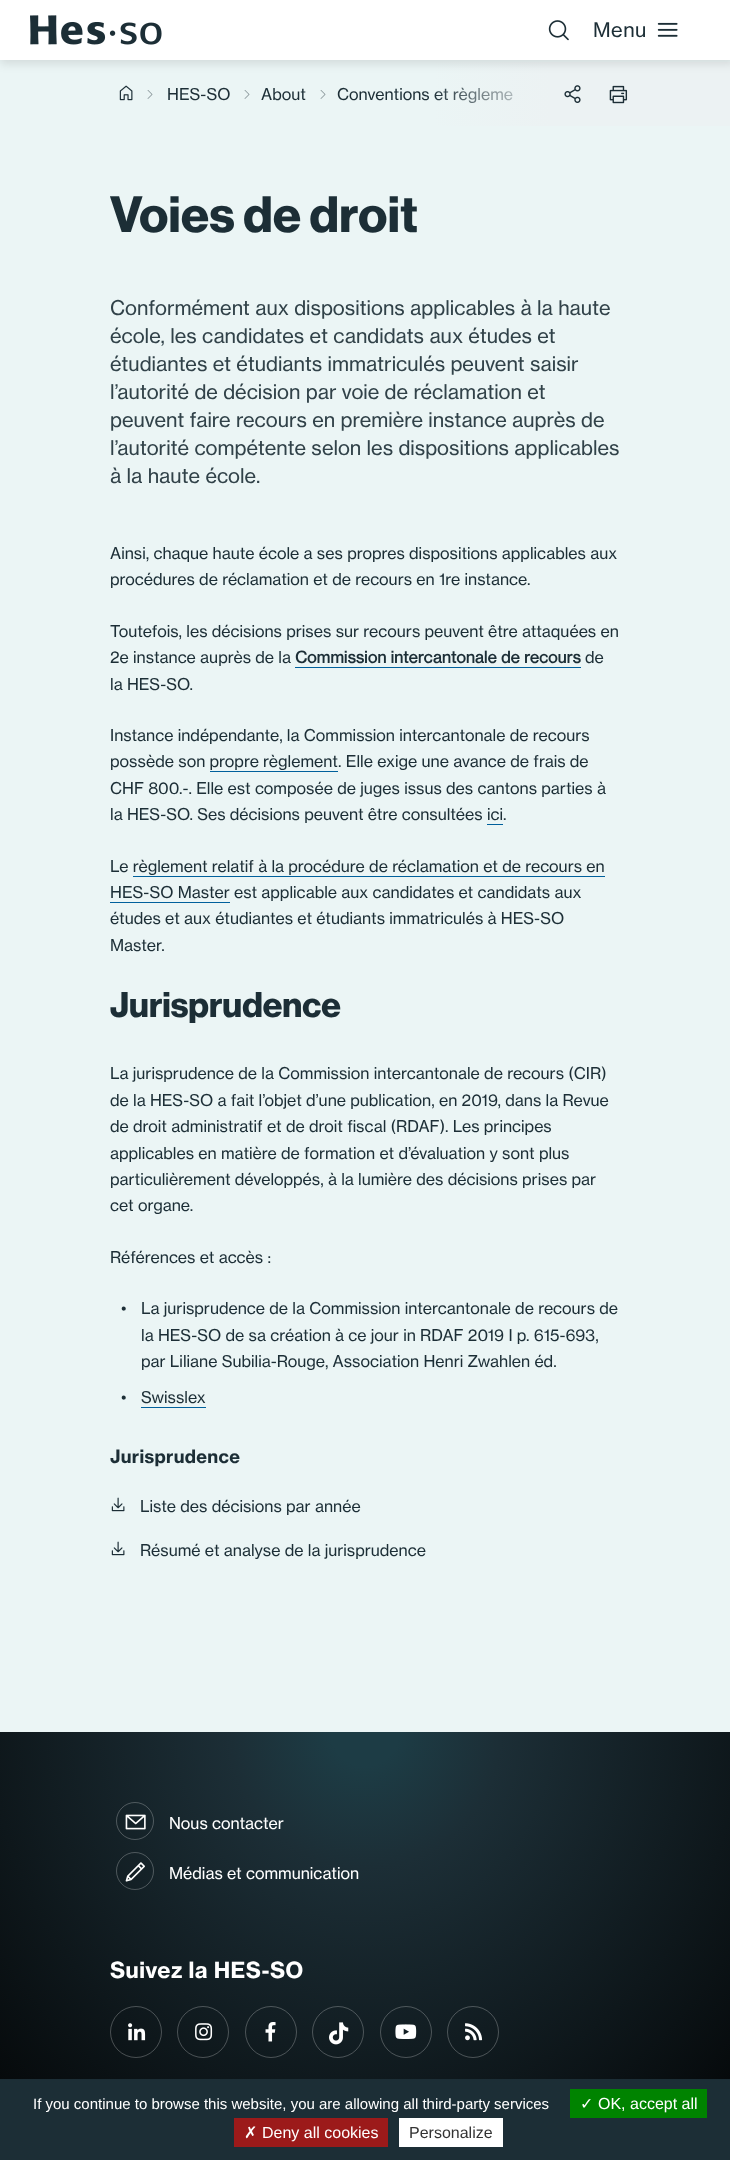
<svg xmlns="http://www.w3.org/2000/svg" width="730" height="2160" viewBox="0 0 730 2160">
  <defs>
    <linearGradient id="g1" gradientUnits="userSpaceOnUse" x1="430" y1="94" x2="730" y2="94"><stop offset="0" stop-color="rgb(236,242,243)" stop-opacity="0"/><stop offset="0.4" stop-color="rgb(236,242,243)"/><stop offset="1" stop-color="rgb(236,242,243)"/></linearGradient>
    <radialGradient id="g2" gradientUnits="userSpaceOnUse" cx="365" cy="1732" r="677"><stop offset="0.05" stop-color="rgb(29,60,69)"/><stop offset="0.2" stop-color="rgb(28,46,54)"/><stop offset="0.9" stop-color="rgb(0,0,0)"/></radialGradient>
  </defs>
  <rect width="100%" height="100%" fill="rgb(235,245,245)"/>
  <text x="337" y="100" font-family="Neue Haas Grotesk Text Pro" font-size="16" fill="rgb(28,46,54)">Conventions et règleme</text>
  <rect x="435" y="62" width="295" height="64" fill="url(#g1)"/>
  <rect x="0" y="0" width="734" height="64" fill="rgba(0,0,0,0.1)" filter="blur(5px)"/>
  <rect x="0" y="0" width="730" height="60" fill="rgb(255,255,255)"/>
  <image x="30" y="15" width="132" height="30" href="pic1.png"/>
  <image x="548" y="20" width="21" height="21" href="pic2.png"/>
  <text x="593" y="37" font-family="Neue Haas Grotesk Text Pro" font-size="20" letter-spacing="0.5" fill="rgb(28,46,54)">Menu</text>
  <image x="657" y="22" width="21" height="15" href="pic3.png"/>
  <image x="119" y="85" width="14" height="16" href="pic4.png"/>
  <image x="147" y="90" width="6" height="9" href="pic5.png"/>
  <text x="167" y="100" font-family="Neue Haas Grotesk Text Pro" font-size="16" fill="rgb(28,46,54)">HES-SO</text>
  <image x="244" y="90" width="6" height="9" href="pic5.png"/>
  <text x="261" y="100" font-family="Neue Haas Grotesk Text Pro" font-size="16" fill="rgb(28,46,54)">About</text>
  <image x="320" y="90" width="6" height="9" href="pic5.png"/>
  <image x="564" y="85" width="17" height="18" href="pic6.png"/>
  <image x="609" y="85" width="19" height="19" href="pic7.png"/>
  <text x="110" y="232" font-family="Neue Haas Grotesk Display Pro" font-size="50" font-weight="bold" letter-spacing="0.4" fill="rgb(28,46,54)">Voies de droit</text>
  <g font-family="Neue Haas Grotesk Text Pro" font-size="20" fill="rgb(49,66,73)">
    <text>
      <tspan x="110" y="315">Conformément aux dispositions applicables à la haute</tspan>
      <tspan x="110" y="343">école, les candidates et candidats aux études et</tspan>
      <tspan x="110" y="371">étudiantes et étudiants immatriculés peuvent saisir</tspan>
      <tspan x="110" y="399">l’autorité de décision par voie de réclamation et</tspan>
      <tspan x="110" y="427">peuvent faire recours en première instance auprès de</tspan>
      <tspan x="110" y="455">l’autorité compétente selon les dispositions applicables</tspan>
      <tspan x="110" y="483">à la haute école.</tspan>
    </text>
  </g>
  <g font-family="Neue Haas Grotesk Text Pro" font-size="16" fill="rgb(28,46,54)">
    <text>
      <tspan x="110" y="559">Ainsi, chaque haute école a ses propres dispositions applicables aux</tspan>
      <tspan x="110" y="585">procédures de réclamation et de recours en 1re instance.</tspan>
    </text>
    <text>
      <tspan x="110" y="637">Toutefois, les décisions prises sur recours peuvent être attaquées en</tspan>
      <tspan x="110" y="663">2e instance auprès de la</tspan>
    </text>
  </g>
  <text x="295" y="663" font-family="Neue Haas Grotesk Text Pro" font-size="16" font-weight="bold" fill="rgb(28,46,54)">Commission intercantonale de recours</text>
  <rect x="295" y="667" width="286" height="1" fill="rgb(0,96,156)"/>
  <g font-family="Neue Haas Grotesk Text Pro" font-size="16" fill="rgb(28,46,54)">
    <text x="585" y="663">de</text>
    <text x="110" y="690">la HES-SO.</text>
    <text>
      <tspan x="110" y="741">Instance indépendante, la Commission intercantonale de recours</tspan>
      <tspan x="110" y="767">possède son propre règlement. Elle exige une avance de frais de</tspan>
    </text>
  </g>
  <rect x="210" y="771" width="128" height="1" fill="rgb(0,96,156)"/>
  <g font-family="Neue Haas Grotesk Text Pro" font-size="16" fill="rgb(28,46,54)">
    <text>
      <tspan x="110" y="794">CHF 800.-. Elle est composée de juges issus des cantons parties à</tspan>
      <tspan x="110" y="820">la HES-SO. Ses décisions peuvent être consultées ici.</tspan>
    </text>
  </g>
  <rect x="487" y="824" width="16" height="1" fill="rgb(0,96,156)"/>
  <g font-family="Neue Haas Grotesk Text Pro" font-size="16" fill="rgb(28,46,54)">
    <text>
      <tspan x="110" y="872">Le règlement relatif à la procédure de réclamation et de recours en</tspan>
      <tspan x="110" y="898">HES-SO Master est applicable aux candidates et candidats aux</tspan>
    </text>
  </g>
  <rect x="133" y="876" width="472" height="1" fill="rgb(0,96,156)"/>
  <rect x="110" y="902" width="120" height="1" fill="rgb(0,96,156)"/>
  <g font-family="Neue Haas Grotesk Text Pro" font-size="16" fill="rgb(28,46,54)">
    <text>
      <tspan x="110" y="924">études et aux étudiantes et étudiants immatriculés à HES-SO</tspan>
      <tspan x="110" y="951">Master.</tspan>
    </text>
  </g>
  <text x="110" y="1017" font-family="Neue Haas Grotesk Display Pro" font-size="35" font-weight="bold" fill="rgb(28,46,54)">Jurisprudence</text>
  <g font-family="Neue Haas Grotesk Text Pro" font-size="16" fill="rgb(28,46,54)">
    <text>
      <tspan x="110" y="1079">La jurisprudence de la Commission intercantonale de recours (CIR)</tspan>
      <tspan x="110" y="1106">de la HES-SO a fait l’objet d’une publication, en 2019, dans la Revue</tspan>
      <tspan x="110" y="1132">de droit administratif et de droit fiscal (RDAF). Les principes</tspan>
      <tspan x="110" y="1159">applicables en matière de formation et d’évaluation y sont plus</tspan>
      <tspan x="110" y="1185">particulièrement développés, à la lumière des décisions prises par</tspan>
      <tspan x="110" y="1211">cet organe.</tspan>
    </text>
    <text x="110" y="1263">Références et accès :</text>
    <text x="121" y="1314">•</text>
    <text>
      <tspan x="141" y="1314">La jurisprudence de la Commission intercantonale de recours de</tspan>
      <tspan x="141" y="1341">la HES-SO de sa création à ce jour in RDAF 2019 I p. 615-693,</tspan>
      <tspan x="141" y="1367">par Liliane Subilia-Rouge, Association Henri Zwahlen éd.</tspan>
    </text>
    <text x="121" y="1403">•</text>
    <text x="141" y="1403">Swisslex</text>
  </g>
  <rect x="141" y="1407" width="65" height="1" fill="rgb(0,96,156)"/>
  <text x="110" y="1463" font-family="'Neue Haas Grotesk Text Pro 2'" font-size="18" font-weight="bold" letter-spacing="0.3" fill="rgb(28,46,54)">Jurisprudence</text>
  <image x="111" y="1497" width="14" height="15" href="pic8.png"/>
  <text x="140" y="1512" font-family="Neue Haas Grotesk Text Pro" font-size="16" fill="rgb(28,46,54)">Liste des décisions par année</text>
  <image x="111" y="1541" width="14" height="15" href="pic8.png"/>
  <text x="140" y="1556" font-family="Neue Haas Grotesk Text Pro" font-size="16" fill="rgb(28,46,54)">Résumé et analyse de la jurisprudence</text>
  <rect x="0" y="1732" width="730" height="347" fill="url(#g2)"/>
  <circle cx="135" cy="1821" r="18.5" fill="none" stroke="rgba(255,255,255,0.25)"/>
  <image x="125" y="1814" width="21" height="16" href="pic9.png"/>
  <text x="169" y="1829" font-family="Neue Haas Grotesk Text Pro" font-size="16" fill="rgb(255,255,255)">Nous contacter</text>
  <circle cx="135" cy="1871" r="18.5" fill="none" stroke="rgba(255,255,255,0.25)"/>
  <image x="125" y="1862" width="20" height="20" href="pic10.png"/>
  <text x="169" y="1879" font-family="Neue Haas Grotesk Text Pro" font-size="16" fill="rgb(255,255,255)">Médias et communication</text>
  <text x="110" y="1978" font-family="'Neue Haas Grotesk Text Pro 2'" font-size="22" font-weight="bold" letter-spacing="0.4" fill="rgb(255,255,255)">Suivez la HES-SO</text>
  <circle cx="136" cy="2032" r="25.5" fill="none" stroke="rgba(255,255,255,0.25)"/>
  <image x="128" y="2023" width="18" height="18" href="pic11.png"/>
  <circle cx="203" cy="2032" r="25.5" fill="none" stroke="rgba(255,255,255,0.25)"/>
  <image x="195" y="2023" width="18" height="18" href="pic12.png"/>
  <circle cx="271" cy="2032" r="25.5" fill="none" stroke="rgba(255,255,255,0.25)"/>
  <image x="265" y="2022" width="11" height="20" href="pic13.png"/>
  <circle cx="338" cy="2032" r="25.5" fill="none" stroke="rgba(255,255,255,0.25)"/>
  <image x="329" y="2022" width="20" height="23" href="pic14.png"/>
  <circle cx="406" cy="2032" r="25.5" fill="none" stroke="rgba(255,255,255,0.25)"/>
  <image x="395" y="2024" width="22" height="15" href="pic15.png"/>
  <circle cx="473" cy="2032" r="25.5" fill="none" stroke="rgba(255,255,255,0.25)"/>
  <image x="465" y="2023" width="18" height="18" href="pic16.png"/>
  <rect x="0" y="2079" width="730" height="81" fill="rgb(28,46,54)"/>
  <text x="33" y="2109" font-family="Liberation Sans" font-size="15" fill="rgb(255,255,255)">If you continue to browse this website, you are allowing all third-party services</text>
  <rect x="570" y="2089" width="137" height="29" fill="rgb(0,131,0)"/>
  <text x="580" y="2109" font-family="DejaVu Sans" font-size="16" fill="rgb(255,255,255)">✓</text>
  <text x="598" y="2109" font-family="Liberation Sans" font-size="16" fill="rgb(255,255,255)">OK, accept all</text>
  <rect x="234" y="2118" width="154" height="29" fill="rgb(156,26,26)"/>
  <text x="244" y="2138" font-family="DejaVu Sans" font-size="16" fill="rgb(255,255,255)">✗</text>
  <text x="262" y="2138" font-family="Liberation Sans" font-size="16" fill="rgb(255,255,255)">Deny all cookies</text>
  <rect x="399" y="2118" width="104" height="29" fill="rgb(255,255,255)"/>
  <text x="409" y="2138" font-family="Liberation Sans" font-size="16" fill="rgb(51,51,51)">Personalize</text>
</svg>
